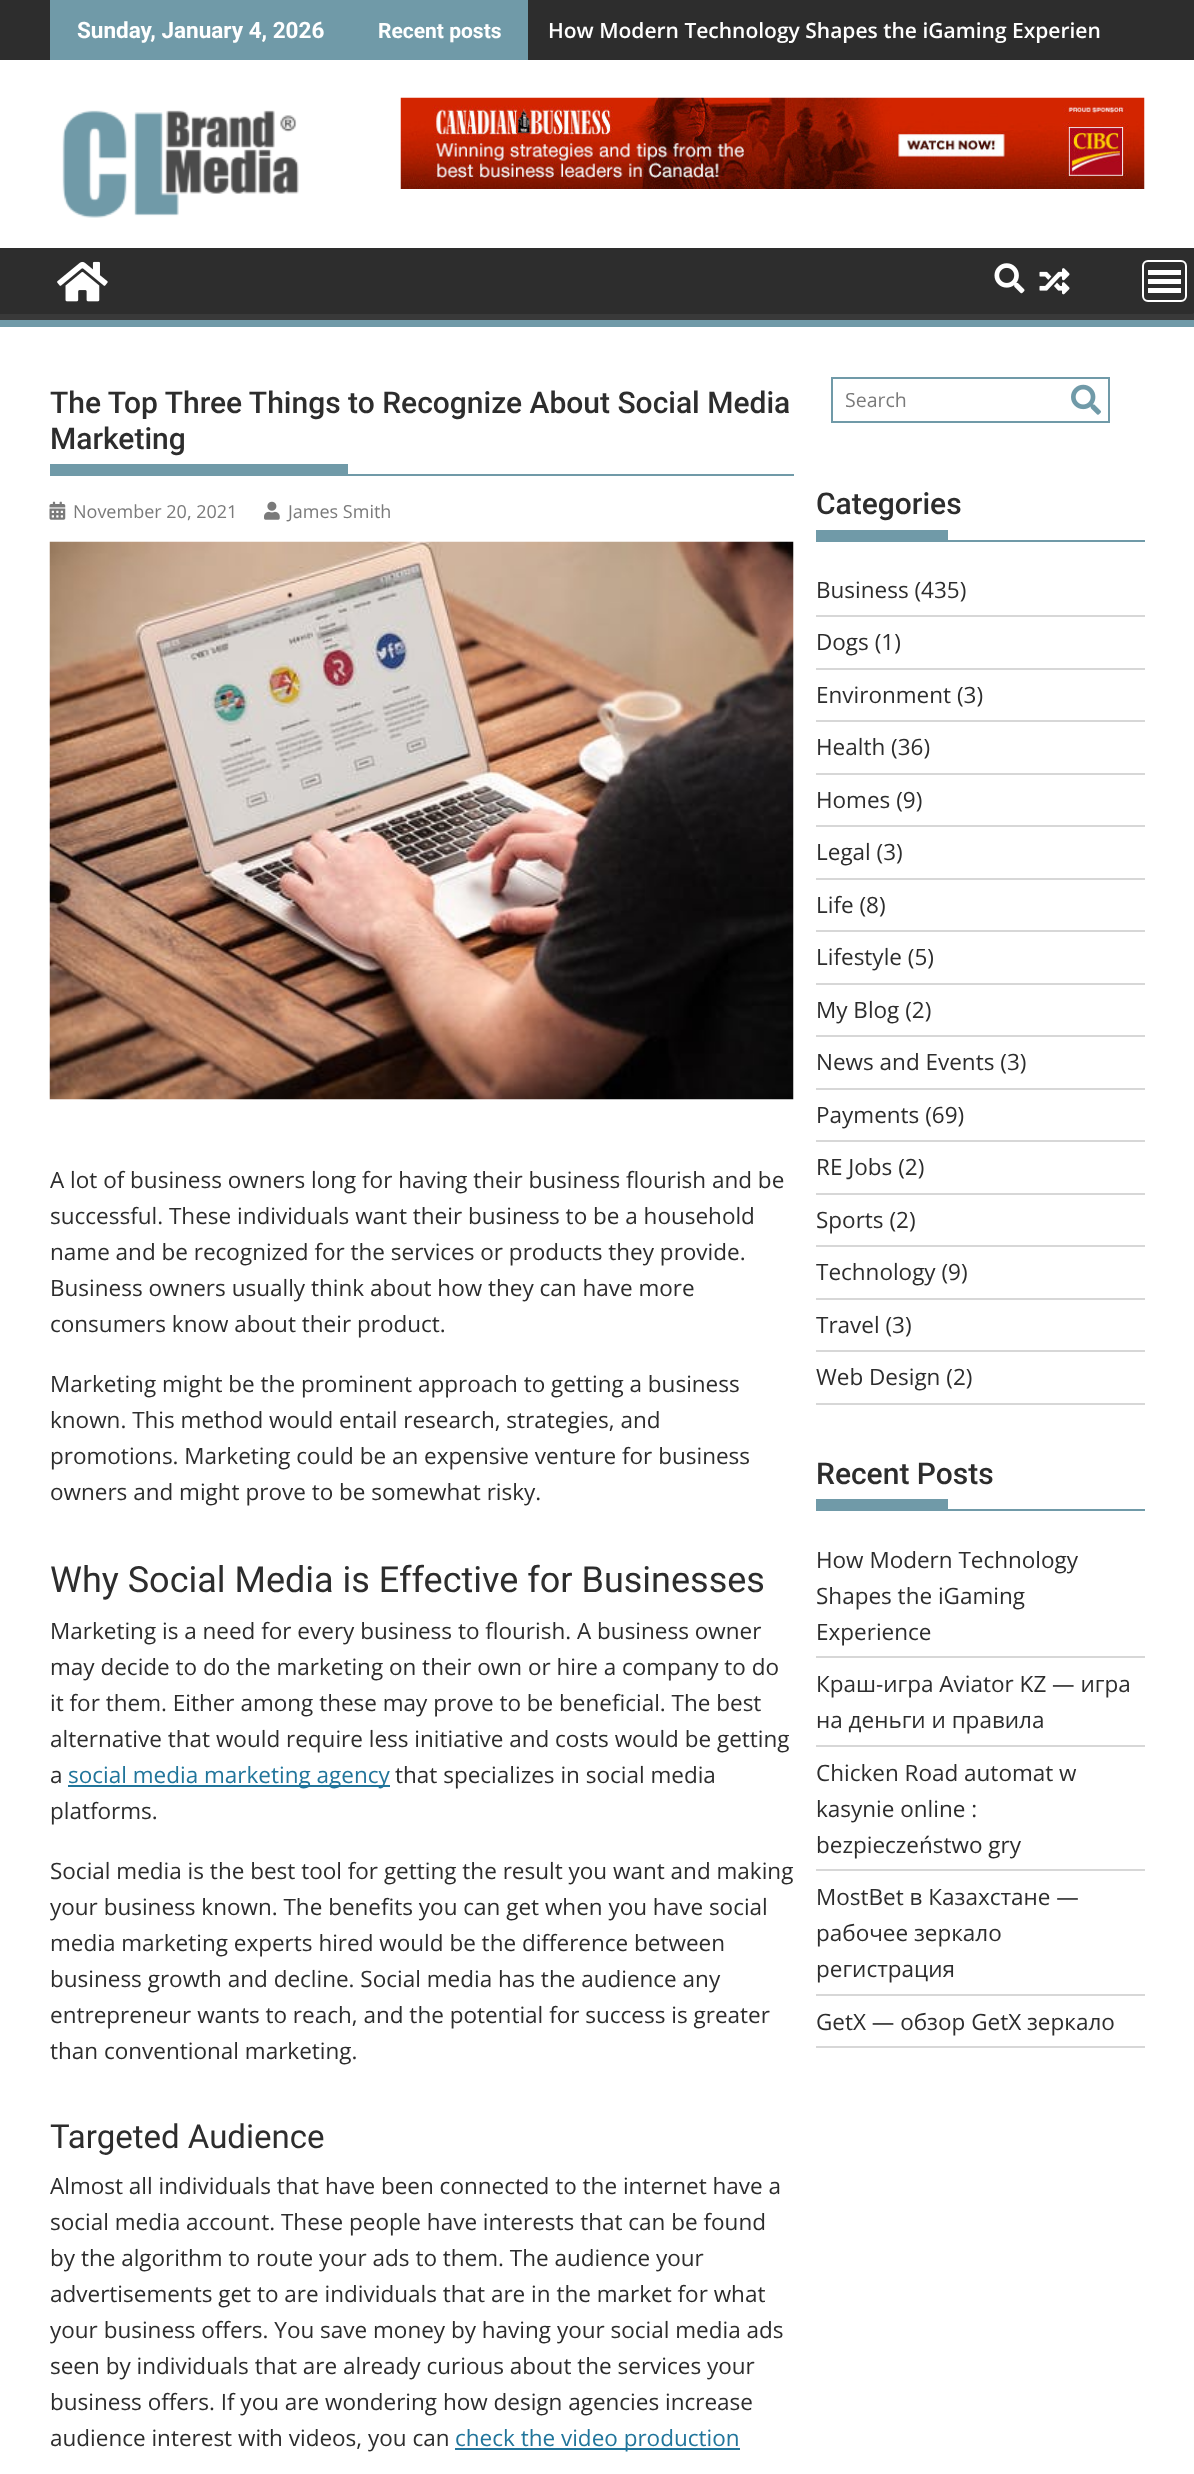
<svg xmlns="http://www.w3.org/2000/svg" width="1194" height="2474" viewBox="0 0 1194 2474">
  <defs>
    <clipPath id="clip1"><rect x="0" y="248" width="1194" height="72"/></clipPath>
  </defs>
  <rect width="100%" height="100%" fill="rgb(255,255,255)"/>
  <rect x="0" y="0" width="1194" height="60" fill="rgb(45,45,45)"/>
  <rect x="50" y="0" width="478" height="60" fill="rgb(112,154,168)"/>
  <text x="77" y="38" font-family="Roboto" font-size="22.5" font-weight="bold" fill="rgb(255,255,255)">Sunday, January 4, 2026</text>
  <text x="378" y="38" font-family="Roboto" font-size="21" font-weight="bold" fill="rgb(255,255,255)">Recent posts</text>
  <text x="548" y="38" font-family="Open Sans" font-size="21" font-weight="600" fill="rgb(255,255,255)">How Modern Technology Shapes the iGaming Experien</text>
  <image x="62" y="110" width="237" height="108" href="pic1.png"/>
  <image x="400" y="97" width="745" height="92" href="pic2.png"/>
  <rect x="0" y="248" width="1194" height="66" fill="rgb(45,45,45)"/>
  <g clip-path="url(#clip1)">
    <path d="M-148 99H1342V468H-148ZM-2 238H1192C1193 238 1194 239 1194 240V312C1194 313 1193 314 1192 314H-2C-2 314-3 313-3 312V240C-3 239-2 238-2 238Z" fill="rgb(57,57,57)" fill-rule="evenodd"/>
  </g>
  <rect x="0" y="320" width="1194" height="7" fill="rgb(112,154,168)"/>
  <image x="57" y="261" width="51" height="41" href="pic3.png"/>
  <image x="994" y="263" width="31" height="31" href="pic4.png"/>
  <image x="1039" y="268" width="31" height="27" href="pic5.png"/>
  <rect x="1143" y="261" width="43" height="40" rx="5" fill="none" stroke="rgb(255,255,255)" stroke-width="2"/>
  <rect x="1148" y="288" width="33" height="5" fill="rgb(255,255,255)"/>
  <rect x="1148" y="279" width="33" height="5" fill="rgb(255,255,255)"/>
  <rect x="1148" y="270" width="33" height="5" fill="rgb(255,255,255)"/>
  <rect x="50" y="474" width="744" height="2" fill="rgb(112,154,168)"/>
  <g font-family="Roboto" font-size="30" font-weight="500" fill="rgb(45,45,45)">
    <text>
      <tspan x="50" y="413">The Top Three Things to Recognize About Social Media</tspan>
      <tspan x="50" y="449">Marketing</tspan>
    </text>
  </g>
  <rect x="50" y="464" width="298" height="10" fill="rgb(112,154,168)"/>
  <image x="49" y="501" width="17" height="19" href="pic6.png"/>
  <text x="73" y="518" font-family="Open Sans" font-size="18" fill="rgb(122,122,122)">November 20, 2021</text>
  <image x="264" y="501" width="16" height="19" href="pic7.png"/>
  <text x="288" y="518" font-family="Open Sans" font-size="18" fill="rgb(122,122,122)">James Smith</text>
  <image x="49" y="541" width="745" height="559" href="pic8.png"/>
  <g font-family="Open Sans" font-size="22.5" fill="rgb(45,45,45)">
    <text>
      <tspan x="50" y="1188">A lot of business owners long for having their business flourish and be</tspan>
      <tspan x="50" y="1224">successful. These individuals want their business to be a household</tspan>
      <tspan x="50" y="1260">name and be recognized for the services or products they provide.</tspan>
      <tspan x="50" y="1296">Business owners usually think about how they can have more</tspan>
      <tspan x="50" y="1332">consumers know about their product.</tspan>
    </text>
    <text>
      <tspan x="50" y="1392">Marketing might be the prominent approach to getting a business</tspan>
      <tspan x="50" y="1428">known. This method would entail research, strategies, and</tspan>
      <tspan x="50" y="1464">promotions. Marketing could be an expensive venture for business</tspan>
      <tspan x="50" y="1500">owners and might prove to be somewhat risky.</tspan>
    </text>
  </g>
  <text x="50" y="1592" font-family="Roboto" font-size="36" fill="rgb(45,45,45)">Why Social Media is Effective for Businesses</text>
  <g font-family="Open Sans" font-size="22.5" fill="rgb(45,45,45)">
    <text>
      <tspan x="50" y="1639">Marketing is a need for every business to flourish. A business owner</tspan>
      <tspan x="50" y="1675">may decide to do the marketing on their own or hire a company to do</tspan>
      <tspan x="50" y="1711">it for them. Either among these may prove to be beneficial. The best</tspan>
      <tspan x="50" y="1747">alternative that would require less initiative and costs would be getting</tspan>
      <tspan x="50" y="1783">a</tspan>
    </text>
  </g>
  <rect x="68" y="1785" width="322" height="2" fill="rgb(33,117,155)"/>
  <text x="68" y="1783" font-family="Open Sans" font-size="22.5" fill="rgb(33,117,155)">social media marketing agency</text>
  <g font-family="Open Sans" font-size="22.5" fill="rgb(45,45,45)">
    <text x="395" y="1783">that specializes in social media</text>
    <text x="50" y="1819">platforms.</text>
    <text>
      <tspan x="50" y="1879">Social media is the best tool for getting the result you want and making</tspan>
      <tspan x="50" y="1915">your business known. The benefits you can get when you have social</tspan>
      <tspan x="50" y="1951">media marketing experts hired would be the difference between</tspan>
      <tspan x="50" y="1987">business growth and decline. Social media has the audience any</tspan>
      <tspan x="50" y="2023">entrepreneur wants to reach, and the potential for success is greater</tspan>
      <tspan x="50" y="2059">than conventional marketing.</tspan>
    </text>
  </g>
  <text x="50" y="2148" font-family="Roboto" font-size="33" fill="rgb(45,45,45)">Targeted Audience</text>
  <g font-family="Open Sans" font-size="22.5" fill="rgb(45,45,45)">
    <text>
      <tspan x="50" y="2194">Almost all individuals that have been connected to the internet have a</tspan>
      <tspan x="50" y="2230">social media account. These people have interests that can be found</tspan>
      <tspan x="50" y="2266">by the algorithm to route your ads to them. The audience your</tspan>
      <tspan x="50" y="2302">advertisements get to are individuals that are in the market for what</tspan>
      <tspan x="50" y="2338">your business offers. You save money by having your social media ads</tspan>
      <tspan x="50" y="2374">seen by individuals that are already curious about the services your</tspan>
      <tspan x="50" y="2410">business offers. If you are wondering how design agencies increase</tspan>
      <tspan x="50" y="2446">audience interest with videos, you can</tspan>
    </text>
  </g>
  <rect x="455" y="2448" width="285" height="2" fill="rgb(33,117,155)"/>
  <text x="455" y="2446" font-family="Open Sans" font-size="22.5" fill="rgb(33,117,155)">check the video production</text>
  <rect x="832" y="378" width="277" height="44" fill="none" stroke="rgb(112,154,168)" stroke-width="2"/>
  <text x="845" y="407" font-family="Open Sans" font-size="19.5" fill="rgb(122,122,122)">Search</text>
  <image x="1071" y="384" width="30" height="31" href="pic9.png"/>
  <rect x="816" y="540" width="329" height="2" fill="rgb(112,154,168)"/>
  <text x="816" y="514" font-family="Roboto" font-size="30" font-weight="500" fill="rgb(45,45,45)">Categories</text>
  <rect x="816" y="530" width="132" height="10" fill="rgb(112,154,168)"/>
  <rect x="816" y="615" width="329" height="2" fill="rgb(215,215,215)"/>
  <text x="816" y="598" font-family="Open Sans" font-size="22.5" fill="rgb(45,45,45)">Business (435)</text>
  <rect x="816" y="668" width="329" height="2" fill="rgb(215,215,215)"/>
  <text x="816" y="650" font-family="Open Sans" font-size="22.5" fill="rgb(45,45,45)">Dogs (1)</text>
  <rect x="816" y="720" width="329" height="2" fill="rgb(215,215,215)"/>
  <text x="816" y="703" font-family="Open Sans" font-size="22.5" fill="rgb(45,45,45)">Environment (3)</text>
  <rect x="816" y="773" width="329" height="2" fill="rgb(215,215,215)"/>
  <text x="816" y="755" font-family="Open Sans" font-size="22.5" fill="rgb(45,45,45)">Health (36)</text>
  <rect x="816" y="825" width="329" height="2" fill="rgb(215,215,215)"/>
  <text x="816" y="808" font-family="Open Sans" font-size="22.5" fill="rgb(45,45,45)">Homes (9)</text>
  <rect x="816" y="878" width="329" height="2" fill="rgb(215,215,215)"/>
  <text x="816" y="860" font-family="Open Sans" font-size="22.5" fill="rgb(45,45,45)">Legal (3)</text>
  <rect x="816" y="930" width="329" height="2" fill="rgb(215,215,215)"/>
  <text x="816" y="913" font-family="Open Sans" font-size="22.5" fill="rgb(45,45,45)">Life (8)</text>
  <rect x="816" y="983" width="329" height="2" fill="rgb(215,215,215)"/>
  <text x="816" y="965" font-family="Open Sans" font-size="22.5" fill="rgb(45,45,45)">Lifestyle (5)</text>
  <rect x="816" y="1035" width="329" height="2" fill="rgb(215,215,215)"/>
  <text x="816" y="1018" font-family="Open Sans" font-size="22.5" fill="rgb(45,45,45)">My Blog (2)</text>
  <rect x="816" y="1088" width="329" height="2" fill="rgb(215,215,215)"/>
  <text x="816" y="1070" font-family="Open Sans" font-size="22.5" fill="rgb(45,45,45)">News and Events (3)</text>
  <rect x="816" y="1140" width="329" height="2" fill="rgb(215,215,215)"/>
  <text x="816" y="1123" font-family="Open Sans" font-size="22.5" fill="rgb(45,45,45)">Payments (69)</text>
  <rect x="816" y="1193" width="329" height="2" fill="rgb(215,215,215)"/>
  <text x="816" y="1175" font-family="Open Sans" font-size="22.5" fill="rgb(45,45,45)">RE Jobs (2)</text>
  <rect x="816" y="1245" width="329" height="2" fill="rgb(215,215,215)"/>
  <text x="816" y="1228" font-family="Open Sans" font-size="22.5" fill="rgb(45,45,45)">Sports (2)</text>
  <rect x="816" y="1298" width="329" height="2" fill="rgb(215,215,215)"/>
  <text x="816" y="1280" font-family="Open Sans" font-size="22.5" fill="rgb(45,45,45)">Technology (9)</text>
  <rect x="816" y="1350" width="329" height="2" fill="rgb(215,215,215)"/>
  <text x="816" y="1333" font-family="Open Sans" font-size="22.5" fill="rgb(45,45,45)">Travel (3)</text>
  <rect x="816" y="1403" width="329" height="2" fill="rgb(215,215,215)"/>
  <text x="816" y="1385" font-family="Open Sans" font-size="22.5" fill="rgb(45,45,45)">Web Design (2)</text>
  <rect x="816" y="1509" width="329" height="2" fill="rgb(112,154,168)"/>
  <text x="816" y="1484" font-family="Roboto" font-size="30" font-weight="500" fill="rgb(45,45,45)">Recent Posts</text>
  <rect x="816" y="1499" width="132" height="10" fill="rgb(112,154,168)"/>
  <rect x="816" y="1656" width="329" height="2" fill="rgb(215,215,215)"/>
  <g font-family="Open Sans" font-size="22.5" fill="rgb(45,45,45)">
    <text>
      <tspan x="816" y="1568">How Modern Technology</tspan>
      <tspan x="816" y="1604">Shapes the iGaming</tspan>
      <tspan x="816" y="1640">Experience</tspan>
    </text>
  </g>
  <rect x="816" y="1745" width="329" height="2" fill="rgb(215,215,215)"/>
  <g font-family="Open Sans" font-size="22.5" fill="rgb(45,45,45)">
    <text>
      <tspan x="816" y="1692">Краш-игра Aviator KZ — игра</tspan>
      <tspan x="816" y="1728">на деньги и правила</tspan>
    </text>
  </g>
  <rect x="816" y="1869" width="329" height="2" fill="rgb(215,215,215)"/>
  <g font-family="Open Sans" font-size="22.5" fill="rgb(45,45,45)">
    <text>
      <tspan x="816" y="1781">Chicken Road automat w</tspan>
      <tspan x="816" y="1817">kasynie online :</tspan>
      <tspan x="816" y="1853">bezpieczeństwo gry</tspan>
    </text>
  </g>
  <rect x="816" y="1994" width="329" height="2" fill="rgb(215,215,215)"/>
  <g font-family="Open Sans" font-size="22.5" fill="rgb(45,45,45)">
    <text>
      <tspan x="816" y="1905">MostBet в Казахстане —</tspan>
      <tspan x="816" y="1941">рабочее зеркало</tspan>
      <tspan x="816" y="1977">регистрация</tspan>
    </text>
  </g>
  <rect x="816" y="2046" width="329" height="2" fill="rgb(215,215,215)"/>
  <text x="816" y="2030" font-family="Open Sans" font-size="22.5" fill="rgb(45,45,45)">GetX — обзор GetX зеркало</text>
</svg>
